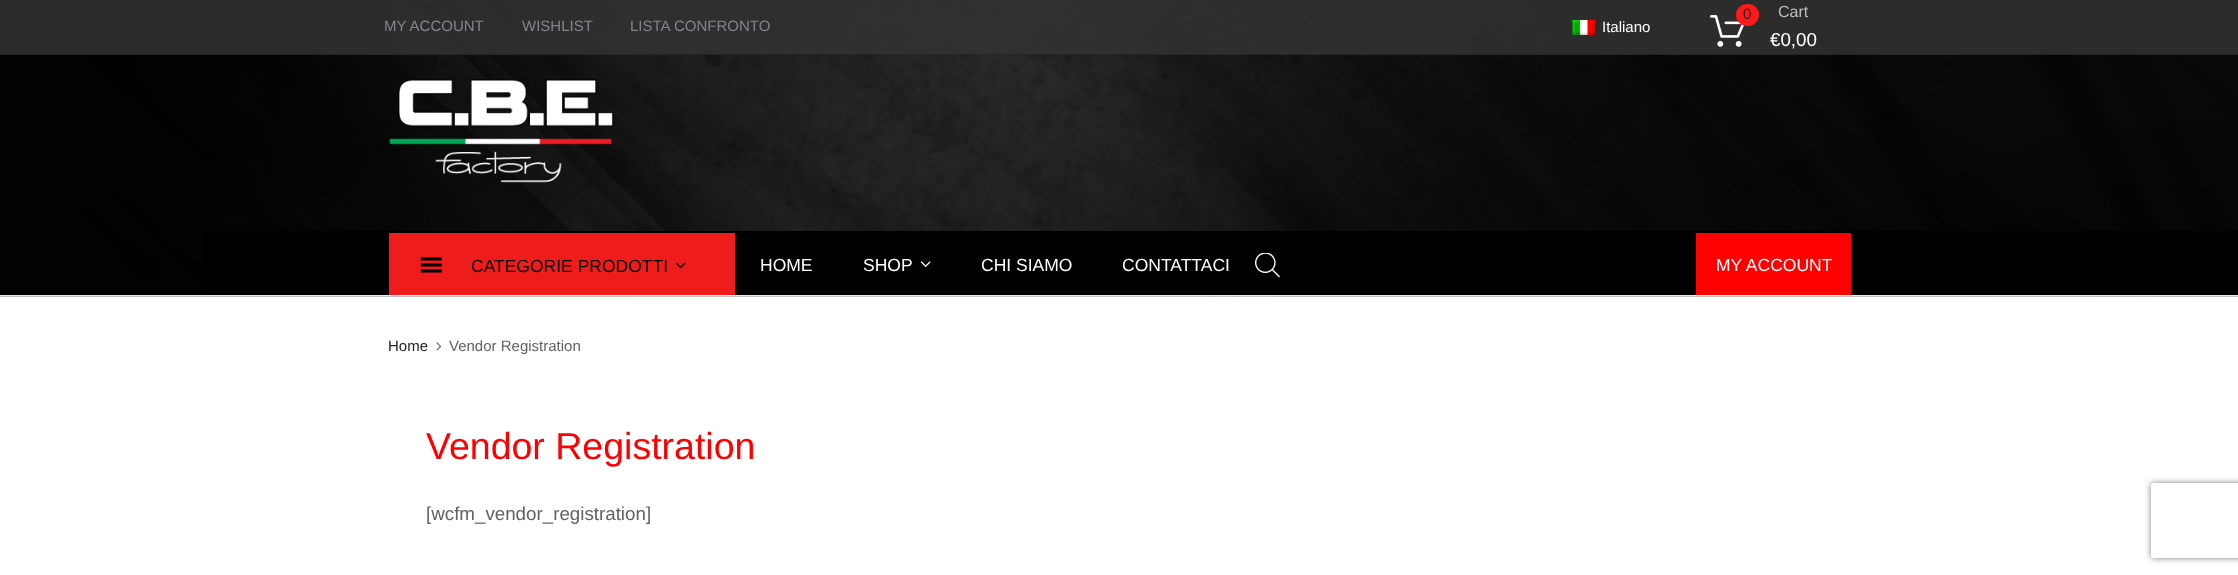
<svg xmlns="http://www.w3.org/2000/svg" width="2238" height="575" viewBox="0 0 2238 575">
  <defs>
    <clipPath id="clip1"><path d="M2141 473H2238V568H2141ZM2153.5 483H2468.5C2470 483 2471 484 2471 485.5V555.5C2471 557 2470 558 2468.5 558H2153.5C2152 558 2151 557 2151 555.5V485.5C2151 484 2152 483 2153.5 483Z" clip-rule="evenodd"/></clipPath>
  </defs>
  <rect width="100%" height="100%" fill="rgb(255,255,255)"/>
  <image x="0" y="0" width="2238" height="297" href="pic1.png"/>
  <rect x="0" y="0" width="2238" height="54" fill="rgba(51,51,51,0.84)"/>
  <rect x="0" y="54" width="2238" height="1" fill="rgb(37,37,37)"/>
  <g font-family="Liberation Sans" font-size="15" fill="rgb(129,133,140)">
    <text x="384" y="31">MY ACCOUNT</text>
    <text x="522" y="31">WISHLIST</text>
    <text x="630" y="31">LISTA CONFRONTO</text>
  </g>
  <image x="1572" y="20" width="23" height="15" href="pic2.png"/>
  <text x="1602" y="32" font-family="Liberation Sans" font-size="15" fill="rgb(255,255,255)">Italiano</text>
  <image x="1710" y="15" width="35" height="32" href="pic3.png"/>
  <rect x="1736" y="4" width="23" height="22" rx="11" fill="rgb(255,25,25)"/>
  <text x="1743" y="19" font-family="Liberation Sans" font-size="15" fill="rgb(33,33,33)">0</text>
  <text x="1778" y="17" font-family="Liberation Sans" font-size="16" fill="rgb(189,189,189)">Cart</text>
  <text x="1770" y="46" font-family="Liberation Sans" font-size="18.75" fill="rgb(255,255,255)">€0,00</text>
  <image x="389" y="79" width="225" height="104" href="pic4.png"/>
  <rect x="203" y="231" width="2035" height="64" fill="rgb(0,0,0)"/>
  <rect x="0" y="295" width="2238" height="1" fill="rgb(235,235,235)"/>
  <rect x="389" y="233" width="346" height="62" fill="rgb(239,28,28)"/>
  <image x="420" y="257" width="22" height="16" href="pic5.png"/>
  <text x="471" y="272" font-family="Liberation Sans" font-size="17.5" fill="rgb(0,0,0)">CATEGORIE PRODOTTI</text>
  <image x="675" y="262" width="11" height="7" href="pic6.png"/>
  <g font-family="Liberation Sans" font-size="17.5" fill="rgb(255,255,255)">
    <text x="760" y="271">HOME</text>
    <text x="863" y="271">SHOP</text>
  </g>
  <image x="920" y="261" width="11" height="6" href="pic7.png"/>
  <g font-family="Liberation Sans" font-size="17.5" fill="rgb(255,255,255)">
    <text x="981" y="271">CHI SIAMO</text>
    <text x="1122" y="271">CONTATTACI</text>
  </g>
  <image x="1255" y="253" width="25" height="25" href="pic8.png"/>
  <rect x="1696" y="233" width="155" height="62" fill="rgb(255,0,0)"/>
  <text x="1716" y="271" font-family="Liberation Sans" font-size="17.5" fill="rgb(255,255,255)">MY ACCOUNT</text>
  <text x="388" y="351" font-family="Liberation Sans" font-size="15" fill="rgb(33,33,33)">Home</text>
  <image x="436" y="342" width="6" height="9" href="pic9.png"/>
  <text x="449" y="351" font-family="Liberation Sans" font-size="15" fill="rgb(98,98,98)">Vendor Registration</text>
  <text x="426" y="459" font-family="Liberation Sans" font-size="37.5" fill="rgb(255,0,0)">Vendor Registration</text>
  <text x="426" y="520" font-family="Liberation Sans" font-size="18.75" fill="rgb(98,98,98)">[wcfm_vendor_registration]</text>
  <g clip-path="url(#clip1)">
    <rect x="2151" y="483" width="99" height="75" rx="2.5" fill="rgb(128,128,128)" filter="blur(3px)"/>
  </g>
</svg>
